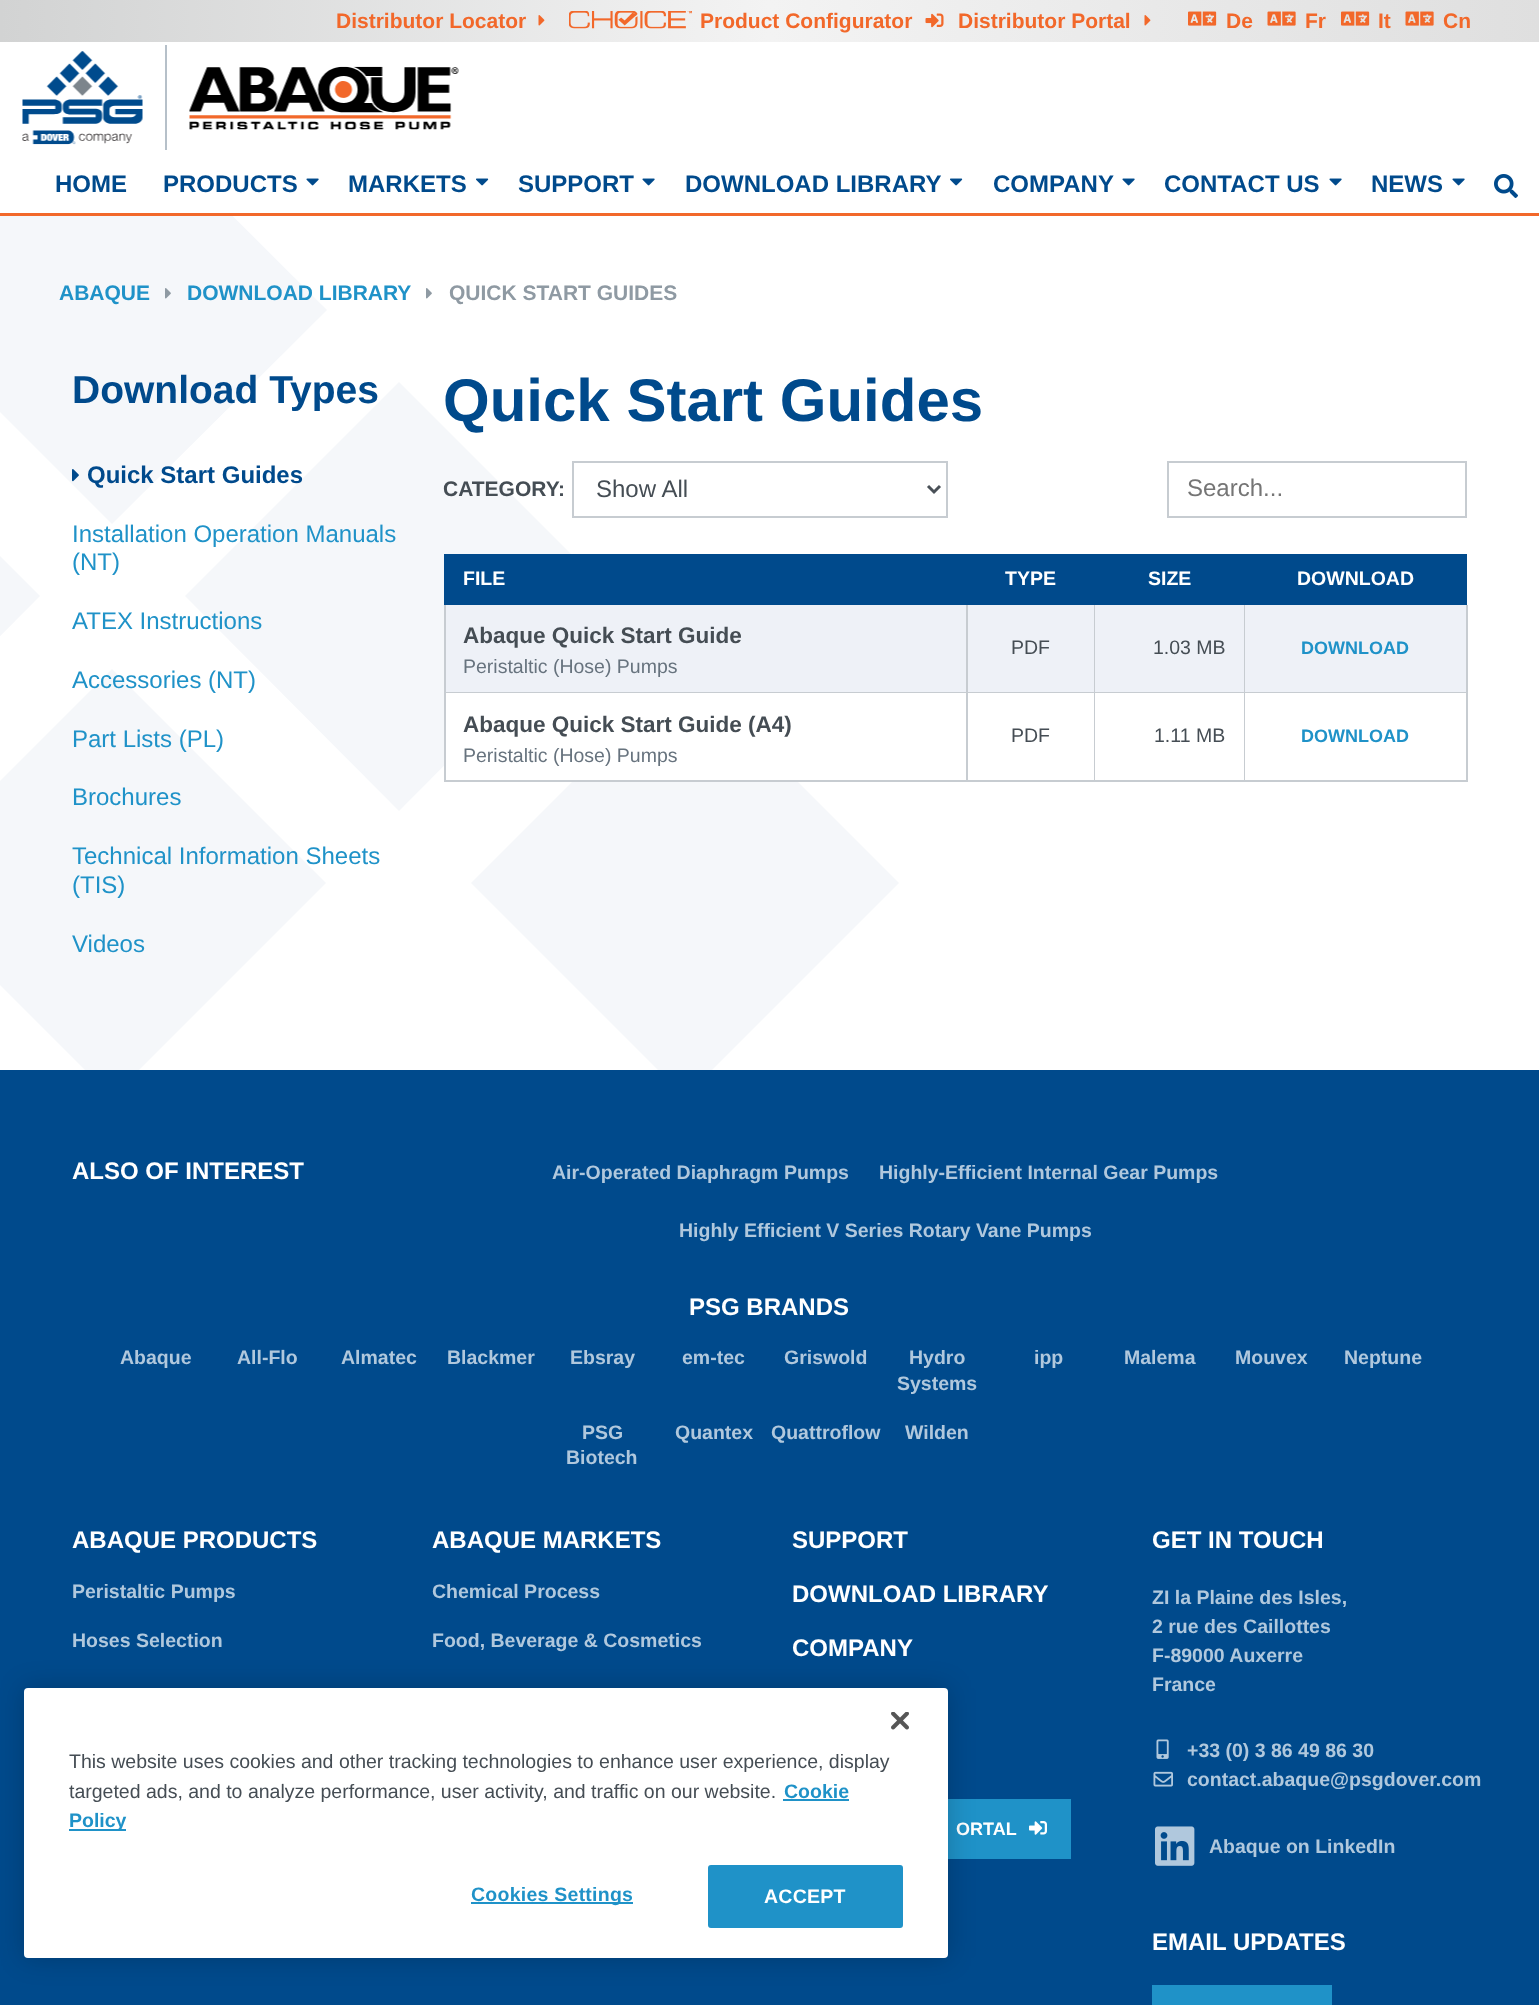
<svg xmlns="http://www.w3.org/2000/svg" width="1539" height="2005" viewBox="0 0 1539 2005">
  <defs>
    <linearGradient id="g1" gradientUnits="userSpaceOnUse" x1="0" y1="21" x2="1539" y2="21"><stop offset="0" stop-color="rgb(210,211,211)"/><stop offset="0.5" stop-color="rgb(243,243,243)"/><stop offset="1" stop-color="rgb(223,223,223)"/></linearGradient>
  </defs>
  <rect width="100%" height="100%" fill="rgb(255,255,255)"/>
  <rect x="0" y="0" width="1539" height="42" fill="url(#g1)"/>
  <text x="336" y="28" font-family="Liberation Sans" font-size="21" font-weight="bold" fill="rgb(242,104,42)">Distributor Locator</text>
  <image x="538" y="15" width="7" height="11" href="pic1.png"/>
  <image x="569" y="11" width="123" height="18" href="pic2.png"/>
  <text x="700" y="28" font-family="Liberation Sans" font-size="21" font-weight="bold" fill="rgb(242,104,42)">Product Configurator</text>
  <image x="925" y="13" width="19" height="15" href="pic3.png"/>
  <text x="958" y="28" font-family="Liberation Sans" font-size="21" font-weight="bold" fill="rgb(242,104,42)">Distributor Portal</text>
  <image x="1144" y="15" width="7" height="11" href="pic4.png"/>
  <image x="1188" y="11" width="29" height="15" href="pic5.png"/>
  <text x="1226" y="28" font-family="Liberation Sans" font-size="21" font-weight="bold" fill="rgb(242,104,42)">De</text>
  <image x="1267" y="11" width="29" height="15" href="pic6.png"/>
  <text x="1305" y="28" font-family="Liberation Sans" font-size="21" font-weight="bold" fill="rgb(242,104,42)">Fr</text>
  <image x="1341" y="11" width="29" height="15" href="pic7.png"/>
  <text x="1378" y="28" font-family="Liberation Sans" font-size="21" font-weight="bold" fill="rgb(242,104,42)">It</text>
  <image x="1405" y="11" width="29" height="15" href="pic8.png"/>
  <text x="1443" y="28" font-family="Liberation Sans" font-size="21" font-weight="bold" fill="rgb(242,104,42)">Cn</text>
  <path d="M-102 310L112 96L327 310L112 524Z" fill="rgb(245,247,250)"/>
  <rect x="0" y="96" width="229" height="117" fill="rgb(255,255,255)"/>
  <rect x="0" y="213" width="1539" height="3" fill="rgb(242,104,42)"/>
  <rect x="165" y="45" width="2" height="105" fill="rgb(182,192,201)"/>
  <image x="22" y="51" width="121" height="94" href="pic9.png"/>
  <image x="189" y="66" width="270" height="64" href="pic10.png"/>
  <g font-family="Liberation Sans" font-size="24" font-weight="bold" fill="rgb(0,74,140)">
    <text x="55" y="192">HOME</text>
    <text x="163" y="192">PRODUCTS</text>
  </g>
  <image x="306" y="178" width="13" height="8" href="pic11.png"/>
  <text x="348" y="192" font-family="Liberation Sans" font-size="24" font-weight="bold" fill="rgb(0,74,140)">MARKETS</text>
  <image x="476" y="178" width="13" height="8" href="pic12.png"/>
  <text x="518" y="192" font-family="Liberation Sans" font-size="24" font-weight="bold" fill="rgb(0,74,140)">SUPPORT</text>
  <image x="642" y="178" width="13" height="8" href="pic11.png"/>
  <text x="685" y="192" font-family="Liberation Sans" font-size="24" font-weight="bold" fill="rgb(0,74,140)">DOWNLOAD LIBRARY</text>
  <image x="950" y="178" width="13" height="8" href="pic12.png"/>
  <text x="993" y="192" font-family="Liberation Sans" font-size="24" font-weight="bold" fill="rgb(0,74,140)">COMPANY</text>
  <image x="1122" y="178" width="13" height="8" href="pic11.png"/>
  <text x="1164" y="192" font-family="Liberation Sans" font-size="24" font-weight="bold" fill="rgb(0,74,140)">CONTACT US</text>
  <image x="1329" y="178" width="13" height="8" href="pic11.png"/>
  <text x="1371" y="192" font-family="Liberation Sans" font-size="24" font-weight="bold" fill="rgb(0,74,140)">NEWS</text>
  <image x="1452" y="178" width="13" height="8" href="pic11.png"/>
  <image x="1494" y="174" width="24" height="24" href="pic13.png"/>
  <text x="59" y="300" font-family="Liberation Sans" font-size="21" font-weight="bold" fill="rgb(31,146,200)">ABAQUE</text>
  <image x="165" y="288" width="6" height="11" href="pic14.png"/>
  <text x="187" y="300" font-family="Liberation Sans" font-size="21" font-weight="bold" fill="rgb(31,146,200)">DOWNLOAD LIBRARY</text>
  <image x="426" y="288" width="6" height="11" href="pic15.png"/>
  <text x="449" y="300" font-family="Liberation Sans" font-size="21" font-weight="bold" fill="rgb(143,154,163)">QUICK START GUIDES</text>
  <path d="M185 596L399 382L613 596L399 811Z" fill="rgb(245,247,250)"/>
  <path d="M471 883L685 669L899 883L685 1097Z" fill="rgb(245,247,250)"/>
  <path d="M-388 596L-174 382L40 596L-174 811Z" fill="rgb(245,247,250)"/>
  <path d="M-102 883L112 669L326 883L112 1097Z" fill="rgb(245,247,250)"/>
  <text x="72" y="403" font-family="Liberation Sans" font-size="39" font-weight="bold" fill="rgb(0,74,140)">Download Types</text>
  <image x="72" y="469" width="7" height="13" href="pic16.png"/>
  <text x="87" y="483" font-family="Liberation Sans" font-size="24" font-weight="bold" fill="rgb(0,74,140)">Quick Start Guides</text>
  <g font-family="Liberation Sans" font-size="24" fill="rgb(31,146,200)">
    <text>
      <tspan x="72" y="542">Installation Operation Manuals</tspan>
      <tspan x="72" y="570">(NT)</tspan>
    </text>
    <text x="72" y="629">ATEX Instructions</text>
    <text x="72" y="688">Accessories (NT)</text>
    <text x="72" y="747">Part Lists (PL)</text>
    <text x="72" y="805">Brochures</text>
    <text>
      <tspan x="72" y="864">Technical Information Sheets</tspan>
      <tspan x="72" y="893">(TIS)</tspan>
    </text>
    <text x="72" y="952">Videos</text>
  </g>
  <text x="443" y="421" font-family="Liberation Sans" font-size="60" font-weight="bold" fill="rgb(0,74,140)">Quick Start Guides</text>
  <text x="443" y="496" font-family="Liberation Sans" font-size="21" font-weight="bold" fill="rgb(69,77,84)">CATEGORY:</text>
  <rect x="573" y="462" width="374" height="55" fill="none" stroke="rgb(199,204,209)" stroke-width="2"/>
  <path d="M928 486L934 492L940 486" fill="none" stroke="rgb(73,80,87)" stroke-width="3"/>
  <text x="596" y="497" font-family="Liberation Sans" font-size="24" fill="rgb(69,77,84)">Show All</text>
  <rect x="1168" y="462" width="298" height="55" fill="none" stroke="rgb(199,204,209)" stroke-width="2"/>
  <text x="1187" y="496" font-family="Liberation Sans" font-size="24" fill="rgb(117,117,117)">Search...</text>
  <rect x="444" y="554" width="1023" height="51" fill="rgb(0,74,140)"/>
  <g font-family="Liberation Sans" font-size="19.5" font-weight="bold" fill="rgb(255,255,255)">
    <text x="463" y="585">FILE</text>
    <text x="1005" y="585">TYPE</text>
    <text x="1148" y="585">SIZE</text>
    <text x="1297" y="585">DOWNLOAD</text>
  </g>
  <rect x="446" y="605" width="520" height="87" fill="rgb(238,241,247)"/>
  <rect x="966" y="605" width="2" height="177" fill="rgb(199,204,209)"/>
  <rect x="444" y="692" width="524" height="1" fill="rgb(199,204,209)"/>
  <rect x="444" y="605" width="2" height="88" fill="rgb(199,204,209)"/>
  <text x="463" y="643" font-family="Liberation Sans" font-size="22.5" font-weight="bold" fill="rgb(69,77,84)">Abaque Quick Start Guide</text>
  <text x="463" y="673" font-family="Liberation Sans" font-size="19.5" fill="rgb(103,115,126)">Peristaltic (Hose) Pumps</text>
  <rect x="968" y="605" width="126" height="87" fill="rgb(238,241,247)"/>
  <rect x="1094" y="605" width="1" height="177" fill="rgb(199,204,209)"/>
  <rect x="968" y="692" width="127" height="1" fill="rgb(199,204,209)"/>
  <text x="1011" y="654" font-family="Liberation Sans" font-size="19.5" fill="rgb(69,77,84)">PDF</text>
  <rect x="1095" y="605" width="149" height="87" fill="rgb(238,241,247)"/>
  <rect x="1244" y="605" width="1" height="177" fill="rgb(199,204,209)"/>
  <rect x="1095" y="692" width="150" height="1" fill="rgb(199,204,209)"/>
  <text x="1153" y="654" font-family="Liberation Sans" font-size="19.5" fill="rgb(69,77,84)">1.03 MB</text>
  <rect x="1245" y="605" width="221" height="87" fill="rgb(238,241,247)"/>
  <rect x="1466" y="605" width="2" height="177" fill="rgb(199,204,209)"/>
  <rect x="1245" y="692" width="222" height="1" fill="rgb(199,204,209)"/>
  <text x="1301" y="654" font-family="Liberation Sans" font-size="18" font-weight="bold" fill="rgb(31,146,200)">DOWNLOAD</text>
  <rect x="446" y="693" width="350" height="87" fill="rgb(255,255,255)"/>
  <rect x="444" y="780" width="801" height="2" fill="rgb(199,204,209)"/>
  <rect x="444" y="693" width="2" height="89" fill="rgb(199,204,209)"/>
  <text x="463" y="732" font-family="Liberation Sans" font-size="22.5" font-weight="bold" fill="rgb(69,77,84)">Abaque Quick Start Guide (A4)</text>
  <text x="463" y="762" font-family="Liberation Sans" font-size="19.5" fill="rgb(103,115,126)">Peristaltic (Hose) Pumps</text>
  <g font-family="Liberation Sans" font-size="19.5" fill="rgb(69,77,84)">
    <text x="1011" y="742">PDF</text>
    <text x="1154" y="742">1.11 MB</text>
  </g>
  <rect x="1245" y="780" width="222" height="2" fill="rgb(199,204,209)"/>
  <text x="1301" y="742" font-family="Liberation Sans" font-size="18" font-weight="bold" fill="rgb(31,146,200)">DOWNLOAD</text>
  <rect x="0" y="1070" width="1539" height="935" fill="rgb(0,74,140)"/>
  <text x="72" y="1179" font-family="Liberation Sans" font-size="24" font-weight="bold" fill="rgb(255,255,255)">ALSO OF INTEREST</text>
  <g font-family="Liberation Sans" font-size="19.5" font-weight="bold" fill="rgb(176,200,221)">
    <text x="552" y="1179">Air-Operated Diaphragm Pumps</text>
    <text x="879" y="1179">Highly-Efficient Internal Gear Pumps</text>
    <text x="679" y="1237">Highly Efficient V Series Rotary Vane Pumps</text>
  </g>
  <text x="689" y="1315" font-family="Liberation Sans" font-size="24" font-weight="bold" fill="rgb(255,255,255)">PSG BRANDS</text>
  <g font-family="Liberation Sans" font-size="19.5" font-weight="bold" fill="rgb(176,200,221)">
    <text x="120" y="1364">Abaque</text>
    <text x="237" y="1364">All-Flo</text>
    <text x="341" y="1364">Almatec</text>
    <text x="447" y="1364">Blackmer</text>
    <text x="570" y="1364">Ebsray</text>
    <text x="682" y="1364">em-tec</text>
    <text x="784" y="1364">Griswold</text>
    <text x="909" y="1364">Hydro</text>
    <text x="897" y="1390">Systems</text>
    <text x="1034" y="1364">ipp</text>
    <text x="1124" y="1364">Malema</text>
    <text x="1235" y="1364">Mouvex</text>
    <text x="1344" y="1364">Neptune</text>
    <text x="582" y="1439">PSG</text>
    <text x="566" y="1464">Biotech</text>
    <text x="675" y="1439">Quantex</text>
    <text x="771" y="1439">Quattroflow</text>
    <text x="905" y="1439">Wilden</text>
  </g>
  <text x="72" y="1548" font-family="Liberation Sans" font-size="24" font-weight="bold" fill="rgb(255,255,255)">ABAQUE PRODUCTS</text>
  <g font-family="Liberation Sans" font-size="19.5" font-weight="bold" fill="rgb(176,200,221)">
    <text x="72" y="1598">Peristaltic Pumps</text>
    <text x="72" y="1647">Hoses Selection</text>
  </g>
  <text x="432" y="1548" font-family="Liberation Sans" font-size="24" font-weight="bold" fill="rgb(255,255,255)">ABAQUE MARKETS</text>
  <g font-family="Liberation Sans" font-size="19.5" font-weight="bold" fill="rgb(176,200,221)">
    <text x="432" y="1598">Chemical Process</text>
    <text x="432" y="1647">Food, Beverage &amp; Cosmetics</text>
  </g>
  <g font-family="Liberation Sans" font-size="24" font-weight="bold" fill="rgb(255,255,255)">
    <text x="792" y="1548">SUPPORT</text>
    <text x="792" y="1602">DOWNLOAD LIBRARY</text>
    <text x="792" y="1656">COMPANY</text>
  </g>
  <rect x="948" y="1799" width="123" height="60" fill="rgb(31,146,200)"/>
  <text x="956" y="1835" font-family="Liberation Sans" font-size="18" font-weight="bold" fill="rgb(255,255,255)">ORTAL</text>
  <image x="1029" y="1821" width="18" height="14" href="pic17.png"/>
  <text x="1152" y="1548" font-family="Liberation Sans" font-size="24" font-weight="bold" fill="rgb(255,255,255)">GET IN TOUCH</text>
  <g font-family="Liberation Sans" font-size="19.5" font-weight="bold" fill="rgb(176,200,221)">
    <text>
      <tspan x="1152" y="1604">ZI la Plaine des Isles,</tspan>
      <tspan x="1152" y="1633">2 rue des Caillottes</tspan>
      <tspan x="1152" y="1662">F-89000 Auxerre</tspan>
      <tspan x="1152" y="1691">France</tspan>
    </text>
  </g>
  <image x="1156" y="1739" width="13" height="20" href="pic18.png"/>
  <text x="1187" y="1757" font-family="Liberation Sans" font-size="19.5" font-weight="bold" fill="rgb(176,200,221)">+33 (0) 3 86 49 86 30</text>
  <image x="1153" y="1771" width="20" height="16" href="pic19.png"/>
  <text x="1187" y="1786" font-family="Liberation Sans" font-size="19.5" font-weight="bold" fill="rgb(176,200,221)">contact.abaque@psgdover.com</text>
  <image x="1155" y="1826" width="40" height="40" href="pic20.png"/>
  <text x="1209" y="1853" font-family="Liberation Sans" font-size="19.5" font-weight="bold" fill="rgb(176,200,221)">Abaque on LinkedIn</text>
  <text x="1152" y="1950" font-family="Liberation Sans" font-size="24" font-weight="bold" fill="rgb(255,255,255)">EMAIL UPDATES</text>
  <rect x="1152" y="1985" width="180" height="20" fill="rgb(31,146,200)"/>
  <rect x="24" y="1688" width="924" height="270" rx="4" fill="rgba(0,0,0,0.2)" filter="blur(13.5px)"/>
  <rect x="24" y="1688" width="924" height="270" rx="4" fill="rgb(255,255,255)"/>
  <image x="891" y="1712" width="18" height="18" href="pic21.png"/>
  <g font-family="Liberation Sans" font-size="19.5" fill="rgb(69,77,84)">
    <text>
      <tspan x="69" y="1768">This website uses cookies and other tracking technologies to enhance user experience, display</tspan>
      <tspan x="69" y="1798">targeted ads, and to analyze performance, user activity, and traffic on our website.</tspan>
    </text>
  </g>
  <text x="784" y="1798" font-family="Liberation Sans" font-size="19.5" font-weight="bold" fill="rgb(31,146,200)">Cookie</text>
  <rect x="783" y="1799" width="66" height="2" fill="rgb(31,146,200)"/>
  <rect x="69" y="1829" width="57" height="2" fill="rgb(31,146,200)"/>
  <text x="69" y="1827" font-family="Liberation Sans" font-size="19.5" font-weight="bold" fill="rgb(31,146,200)">Policy</text>
  <rect x="471" y="1902" width="162" height="2" fill="rgb(31,146,200)"/>
  <text x="471" y="1901" font-family="Liberation Sans" font-size="19.5" font-weight="bold" letter-spacing="0.25" fill="rgb(31,146,200)">Cookies Settings</text>
  <rect x="709" y="1866" width="193" height="61" rx="2" fill="rgb(31,146,200)" stroke="rgb(31,146,200)" stroke-width="2"/>
  <text x="764" y="1903" font-family="Liberation Sans" font-size="19.5" font-weight="bold" letter-spacing="0.25" fill="rgb(255,255,255)">ACCEPT</text>
</svg>
